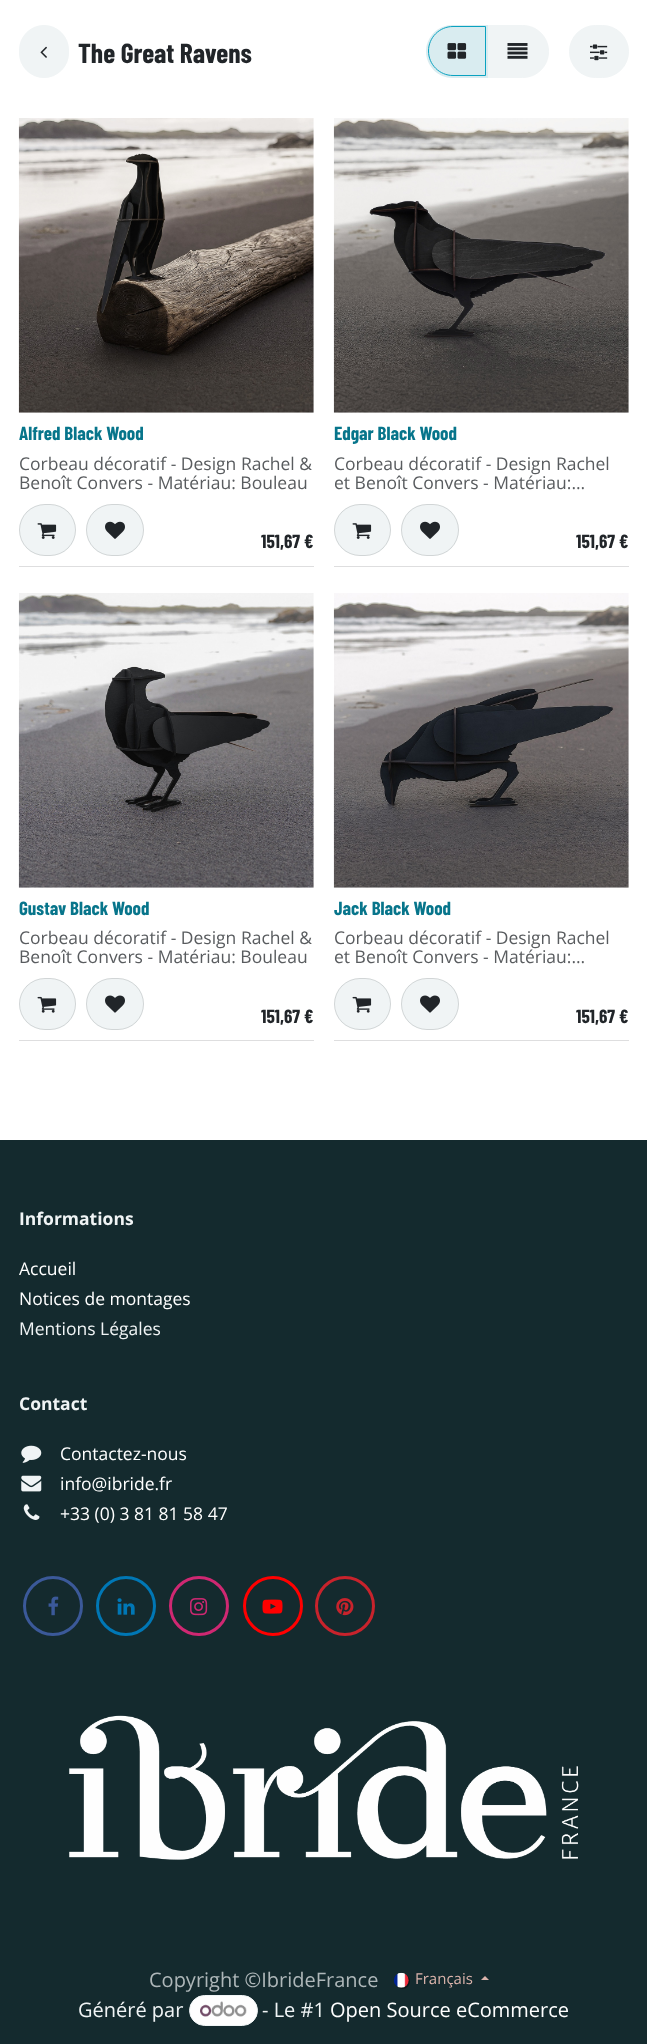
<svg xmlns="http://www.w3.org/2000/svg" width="647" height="2044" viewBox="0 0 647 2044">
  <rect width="100%" height="100%" fill="rgb(255,255,255)"/>
  <rect x="19.5" y="25.5" width="49" height="52" rx="24.5" fill="rgb(240,244,245)" stroke="rgb(240,244,245)"/>
  <image x="40" y="46" width="7" height="12" href="pic1.png"/>
  <text x="78" y="63" font-family="Barlow Condensed" font-size="27.5" font-weight="bold" fill="rgb(33,37,41)">The Great Ravens</text>
  <path d="M486.5 25.5H522.5C537 25.5 548.5 37 548.5 51.5C548.5 66 537 77.5 522.5 77.5H486.5Z" fill="rgb(240,244,245)" stroke="rgb(240,244,245)"/>
  <path d="M452.5 25H488V78H452.5C438 78 426 66 426 51.5C426 37 438 25 452.5 25Z" fill="rgb(217,236,240)"/>
  <path d="M453 26.5H485.5V75.5H453C439.5 75.5 428.5 64.5 428.5 51C428.5 37.5 439.5 26.5 453 26.5Z" fill="none" stroke="rgb(10,162,192)"/>
  <image x="447" y="43" width="20" height="16" href="pic2.png"/>
  <image x="507" y="43" width="21" height="16" href="pic3.png"/>
  <rect x="569.5" y="25.5" width="59" height="52" rx="26" fill="rgb(240,244,245)" stroke="rgb(240,244,245)"/>
  <image x="590" y="44" width="18" height="17" href="pic4.png"/>
  <rect x="19" y="566" width="295" height="1" fill="rgb(222,222,223)"/>
  <image x="18" y="118" width="296" height="295" href="pic5.png"/>
  <text x="19" y="440" font-family="Barlow Condensed" font-size="19" font-weight="bold" fill="rgb(7,117,139)">Alfred Black Wood</text>
  <g font-family="Open Sans" font-size="17.5" fill="rgb(89,92,95)">
    <text>
      <tspan x="19" y="470">Corbeau décoratif - Design Rachel &amp;</tspan>
      <tspan x="19" y="489">Benoît Convers - Matériau: Bouleau</tspan>
    </text>
  </g>
  <rect x="19" y="504" width="57" height="52" rx="26" fill="rgb(240,244,245)"/>
  <rect x="19.5" y="504.5" width="56" height="51" rx="25.5" fill="none" stroke="rgba(33,37,41,0.15)"/>
  <image x="37" y="523" width="20" height="16" href="pic6.png"/>
  <rect x="86" y="504" width="58" height="52" rx="26" fill="rgb(240,244,245)"/>
  <rect x="86.5" y="504.5" width="57" height="51" rx="25.5" fill="none" stroke="rgba(33,37,41,0.15)"/>
  <image x="105" y="521" width="20" height="18" href="pic7.png"/>
  <text x="261" y="548" font-family="Barlow Condensed" font-size="19" font-weight="bold" fill="rgb(33,37,41)">151,67 €</text>
  <rect x="334" y="566" width="295" height="1" fill="rgb(222,222,223)"/>
  <image x="333" y="118" width="296" height="295" href="pic8.png"/>
  <text x="334" y="440" font-family="Barlow Condensed" font-size="19" font-weight="bold" fill="rgb(7,117,139)">Edgar Black Wood</text>
  <g font-family="Open Sans" font-size="17.5" fill="rgb(89,92,95)">
    <text>
      <tspan x="334" y="470">Corbeau décoratif - Design Rachel</tspan>
      <tspan x="334" y="489">et Benoît Convers - Matériau:…</tspan>
    </text>
  </g>
  <rect x="334" y="504" width="57" height="52" rx="26" fill="rgb(240,244,245)"/>
  <rect x="334.5" y="504.5" width="56" height="51" rx="25.5" fill="none" stroke="rgba(33,37,41,0.15)"/>
  <image x="352" y="523" width="20" height="16" href="pic6.png"/>
  <rect x="401" y="504" width="58" height="52" rx="26" fill="rgb(240,244,245)"/>
  <rect x="401.5" y="504.5" width="57" height="51" rx="25.5" fill="none" stroke="rgba(33,37,41,0.15)"/>
  <image x="420" y="521" width="20" height="18" href="pic7.png"/>
  <text x="576" y="548" font-family="Barlow Condensed" font-size="19" font-weight="bold" fill="rgb(33,37,41)">151,67 €</text>
  <rect x="19" y="1040" width="295" height="1" fill="rgb(222,222,223)"/>
  <image x="18" y="593" width="296" height="295" href="pic9.png"/>
  <text x="19" y="915" font-family="Barlow Condensed" font-size="19" font-weight="bold" fill="rgb(7,117,139)">Gustav Black Wood</text>
  <g font-family="Open Sans" font-size="17.5" fill="rgb(89,92,95)">
    <text>
      <tspan x="19" y="944">Corbeau décoratif - Design Rachel &amp;</tspan>
      <tspan x="19" y="963">Benoît Convers - Matériau: Bouleau</tspan>
    </text>
  </g>
  <rect x="19" y="978" width="57" height="52" rx="26" fill="rgb(240,244,245)"/>
  <rect x="19.5" y="978.5" width="56" height="51" rx="25.5" fill="none" stroke="rgba(33,37,41,0.15)"/>
  <image x="37" y="996" width="20" height="17" href="pic10.png"/>
  <rect x="86" y="978" width="58" height="52" rx="26" fill="rgb(240,244,245)"/>
  <rect x="86.5" y="978.5" width="57" height="51" rx="25.5" fill="none" stroke="rgba(33,37,41,0.15)"/>
  <image x="105" y="995" width="20" height="18" href="pic11.png"/>
  <text x="261" y="1023" font-family="Barlow Condensed" font-size="19" font-weight="bold" fill="rgb(33,37,41)">151,67 €</text>
  <rect x="334" y="1040" width="295" height="1" fill="rgb(222,222,223)"/>
  <image x="333" y="593" width="296" height="295" href="pic12.png"/>
  <text x="334" y="915" font-family="Barlow Condensed" font-size="19" font-weight="bold" fill="rgb(7,117,139)">Jack Black Wood</text>
  <g font-family="Open Sans" font-size="17.5" fill="rgb(89,92,95)">
    <text>
      <tspan x="334" y="944">Corbeau décoratif - Design Rachel</tspan>
      <tspan x="334" y="963">et Benoît Convers - Matériau:…</tspan>
    </text>
  </g>
  <rect x="334" y="978" width="57" height="52" rx="26" fill="rgb(240,244,245)"/>
  <rect x="334.5" y="978.5" width="56" height="51" rx="25.5" fill="none" stroke="rgba(33,37,41,0.15)"/>
  <image x="352" y="996" width="20" height="17" href="pic10.png"/>
  <rect x="401" y="978" width="58" height="52" rx="26" fill="rgb(240,244,245)"/>
  <rect x="401.5" y="978.5" width="57" height="51" rx="25.5" fill="none" stroke="rgba(33,37,41,0.15)"/>
  <image x="420" y="995" width="20" height="18" href="pic11.png"/>
  <text x="576" y="1023" font-family="Barlow Condensed" font-size="19" font-weight="bold" fill="rgb(33,37,41)">151,67 €</text>
  <rect x="0" y="1140" width="647" height="904" fill="rgb(20,42,46)"/>
  <text x="19" y="1225" font-family="Open Sans" font-size="17.5" font-weight="bold" fill="rgb(240,244,245)">Informations</text>
  <g font-family="Open Sans" font-size="17.5" fill="rgb(255,255,255)">
    <text>
      <tspan x="19" y="1275">Accueil</tspan>
      <tspan x="19" y="1305">Notices de montages</tspan>
    </text>
  </g>
  <text x="19" y="1335" font-family="Open Sans" font-size="17.5" fill="rgb(240,244,245)">Mentions Légales</text>
  <text x="19" y="1410" font-family="Open Sans" font-size="17.5" font-weight="bold" fill="rgb(240,244,245)">Contact</text>
  <image x="21" y="1445" width="21" height="18" href="pic13.png"/>
  <text x="60" y="1460" font-family="Open Sans" font-size="17.5" fill="rgb(255,255,255)">Contactez-nous</text>
  <image x="21" y="1475" width="21" height="17" href="pic14.png"/>
  <text x="60" y="1490" font-family="Open Sans" font-size="17.5" fill="rgb(255,255,255)">info@ibride.fr</text>
  <image x="23" y="1504" width="17" height="16" href="pic15.png"/>
  <text x="60" y="1520" font-family="Open Sans" font-size="17.5" fill="rgb(255,255,255)">+33 (0) 3 81 81 58 47</text>
  <circle cx="53" cy="1606" r="28.5" fill="none" stroke="rgb(59,89,153)" stroke-width="3"/>
  <image x="48" y="1596" width="11" height="20" href="pic16.png"/>
  <circle cx="126" cy="1606" r="28.5" fill="none" stroke="rgb(0,119,181)" stroke-width="3"/>
  <image x="117" y="1598" width="18" height="17" href="pic17.png"/>
  <circle cx="199" cy="1606" r="28.5" fill="none" stroke="rgb(207,40,114)" stroke-width="3"/>
  <image x="190" y="1598" width="18" height="18" href="pic18.png"/>
  <circle cx="273" cy="1606" r="28.5" fill="none" stroke="rgb(255,0,0)" stroke-width="3"/>
  <image x="262" y="1599" width="21" height="15" href="pic19.png"/>
  <circle cx="345" cy="1606" r="28.5" fill="none" stroke="rgb(200,35,44)" stroke-width="3"/>
  <image x="336" y="1598" width="18" height="18" href="pic20.png"/>
  <image x="69" y="1715" width="510" height="145" href="pic21.png"/>
  <text x="149" y="1987" font-family="Open Sans" font-size="20" fill="rgb(174,183,185)">Copyright ©IbrideFrance</text>
  <rect x="395" y="1974" width="15" height="15" rx="7.5" fill="rgba(0,0,0,0.43)" filter="blur(0.5px)"/>
  <image x="393" y="1972" width="16" height="16" href="pic22.png"/>
  <text x="415" y="1984" font-family="Open Sans" font-size="15" fill="rgb(219,180,172)">Français</text>
  <path d="M489 1980H481L485 1976Z" fill="rgb(219,180,172)"/>
  <text x="78" y="2017" font-family="Open Sans" font-size="20" fill="rgb(240,244,245)">Généré par</text>
  <rect x="189.5" y="1995.5" width="68" height="30" rx="15" fill="rgb(254,254,254)" stroke="rgb(240,244,245)"/>
  <image x="200" y="2001" width="47" height="16" href="pic23.png"/>
  <text x="262" y="2017" font-family="Open Sans" font-size="20" fill="rgb(240,244,245)">- Le #1</text>
  <text x="330" y="2017" font-family="Open Sans" font-size="20" fill="rgb(255,255,255)">Open Source eCommerce</text>
</svg>
